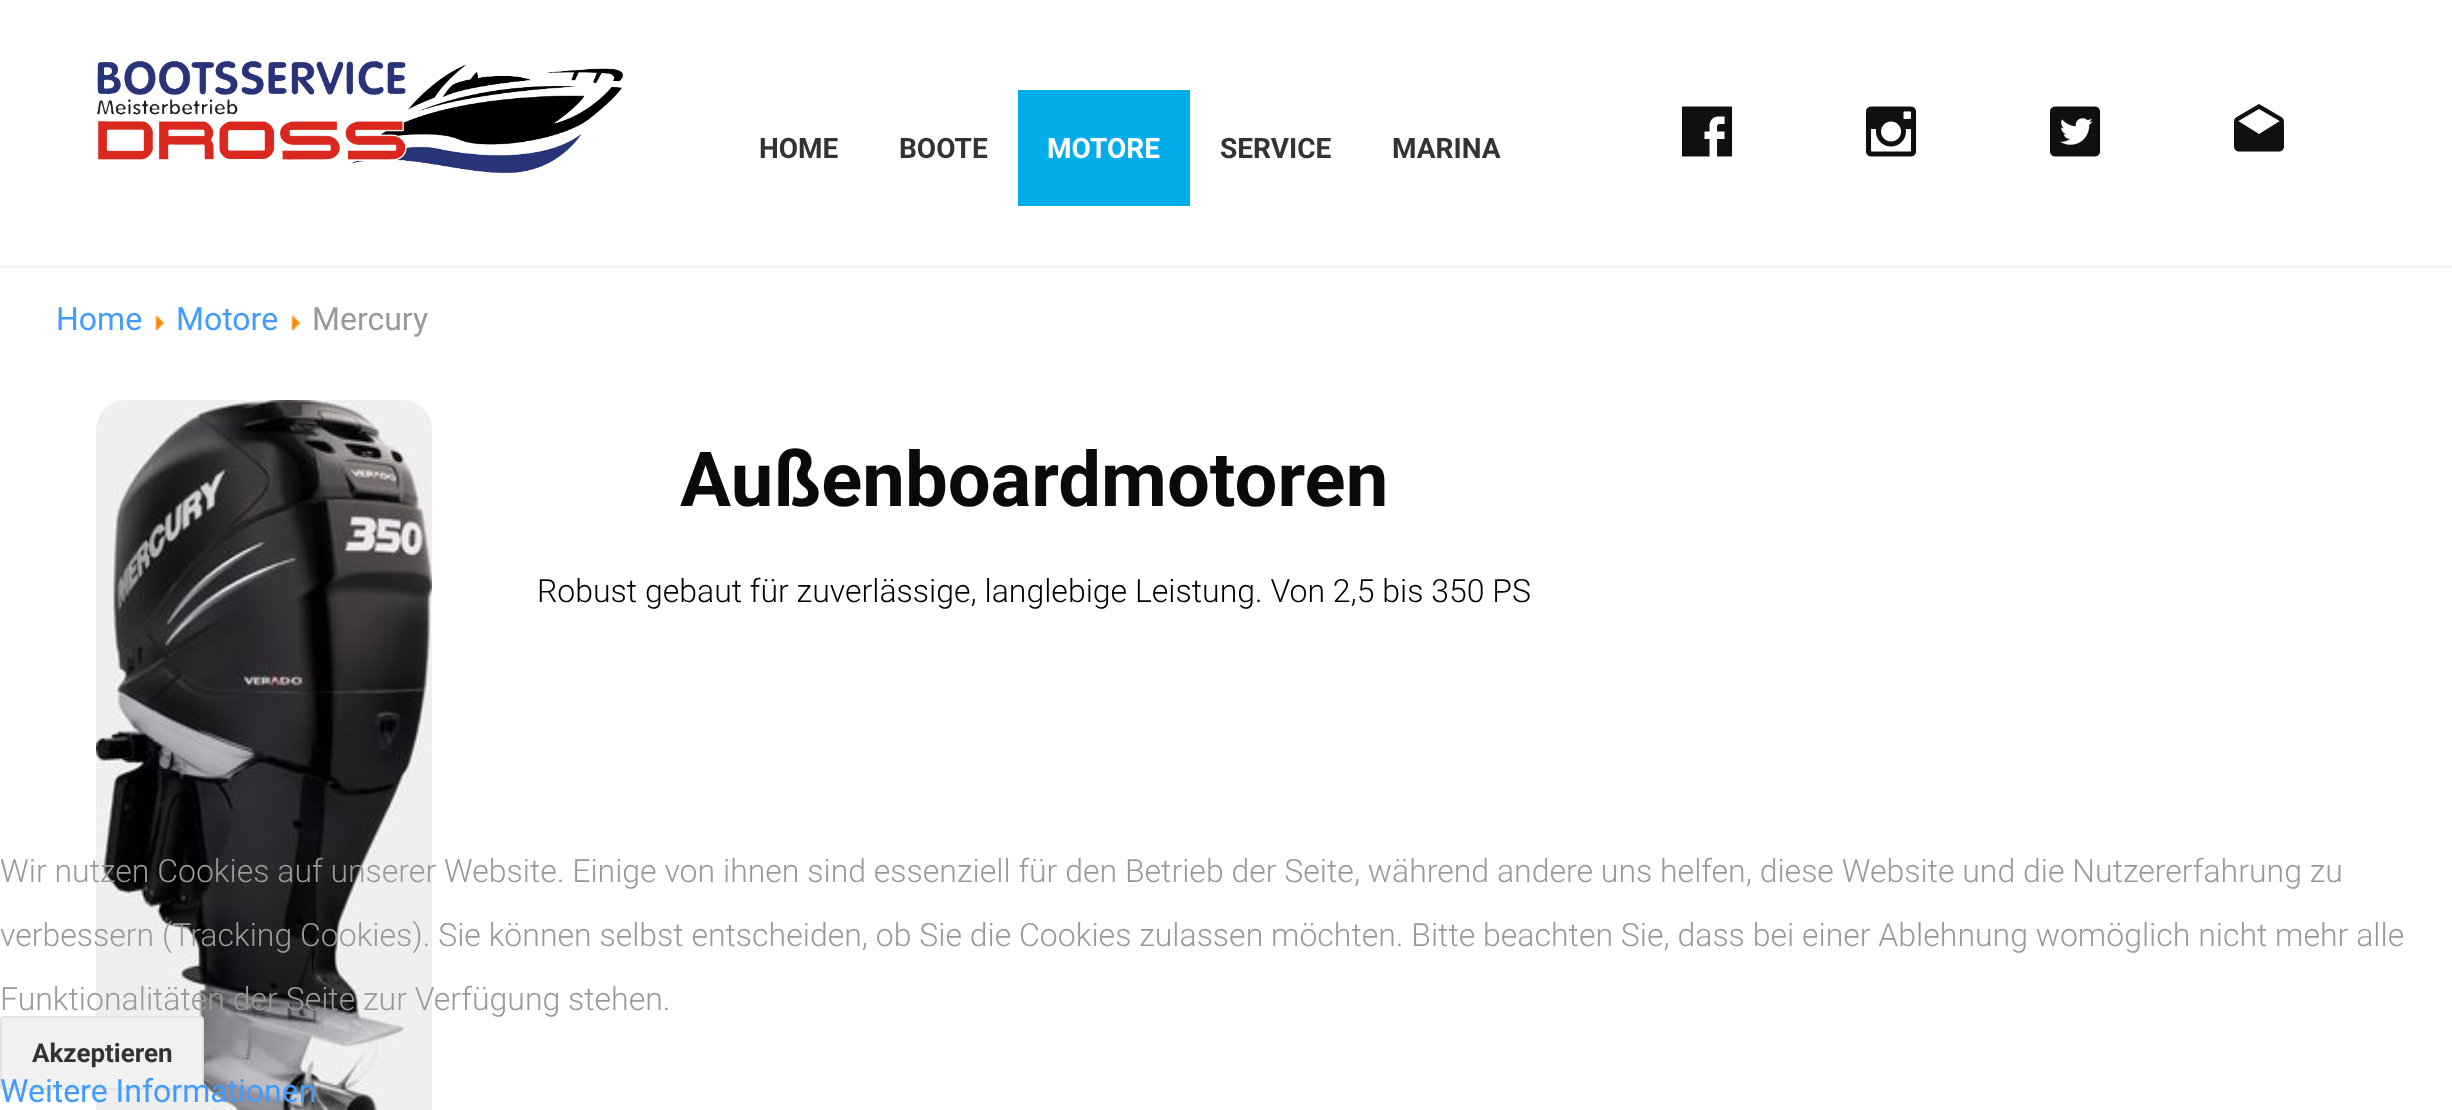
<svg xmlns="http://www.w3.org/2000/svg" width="2452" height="1110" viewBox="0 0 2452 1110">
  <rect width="100%" height="100%" fill="rgb(255,255,255)"/>
  <rect x="0" y="266" width="2452" height="2" fill="rgb(243,243,243)"/>
  <image x="97" y="61" width="526" height="112" href="pic1.png"/>
  <g font-family="Roboto" font-size="28" font-weight="bold" fill="rgb(51,51,51)">
    <text x="759" y="158">HOME</text>
    <text x="899" y="158">BOOTE</text>
  </g>
  <rect x="1018" y="90" width="172" height="116" fill="rgb(2,173,234)"/>
  <text x="1047" y="158" font-family="Roboto" font-size="28" font-weight="bold" fill="rgb(255,255,255)">MOTORE</text>
  <g font-family="Roboto" font-size="28" font-weight="bold" fill="rgb(51,51,51)">
    <text x="1220" y="158">SERVICE</text>
    <text x="1392" y="158">MARINA</text>
  </g>
  <image x="1682" y="106" width="51" height="51" href="pic2.png"/>
  <image x="1866" y="106" width="51" height="51" href="pic3.png"/>
  <image x="2050" y="106" width="51" height="51" href="pic4.png"/>
  <image x="2234" y="104" width="51" height="48" href="pic5.png"/>
  <text x="56" y="330" font-family="Roboto" font-size="32" fill="rgb(66,155,255)">Home</text>
  <image x="155" y="315" width="10" height="15" href="pic6.png"/>
  <text x="176" y="330" font-family="Roboto" font-size="32" fill="rgb(66,155,255)">Motore</text>
  <image x="291" y="315" width="10" height="15" href="pic6.png"/>
  <text x="312" y="330" font-family="Roboto" font-size="32" fill="rgb(153,153,153)">Mercury</text>
  <image x="96" y="400" width="336" height="710" href="pic7.png"/>
  <text x="680" y="506" font-family="Roboto" font-size="76" font-weight="bold" fill="rgb(10,10,10)">Außenboardmotoren</text>
  <text x="537" y="602" font-family="Roboto" font-size="32" font-weight="300" fill="rgb(0,0,0)">Robust gebaut für zuverlässige, langlebige Leistung. Von 2,5 bis 350 PS</text>
  <g font-family="Roboto" font-size="32" font-weight="300" fill="rgb(153,153,153)">
    <text x="0" y="882">Wir nutzen Cookies auf unserer Website. Einige von ihnen sind essenziell für den Betrieb der Seite, während andere uns helfen, diese Website und die Nutzererfahrung zu</text>
    <text x="0" y="946">verbessern (Tracking Cookies). Sie können selbst entscheiden, ob Sie die Cookies zulassen möchten. Bitte beachten Sie, dass bei einer Ablehnung womöglich nicht mehr alle</text>
    <text x="0" y="1010">Funktionalitäten der Seite zur Verfügung stehen.</text>
  </g>
  <rect x="1" y="1017" width="202" height="72" rx="3" fill="rgb(241,241,241)" stroke="rgb(227,227,227)" stroke-width="2"/>
  <text x="32" y="1062" font-family="Roboto" font-size="26" font-weight="bold" fill="rgb(51,51,51)">Akzeptieren</text>
  <text x="0" y="1102" font-family="Roboto" font-size="32" fill="rgb(66,155,255)">Weitere Informationen</text>
</svg>
